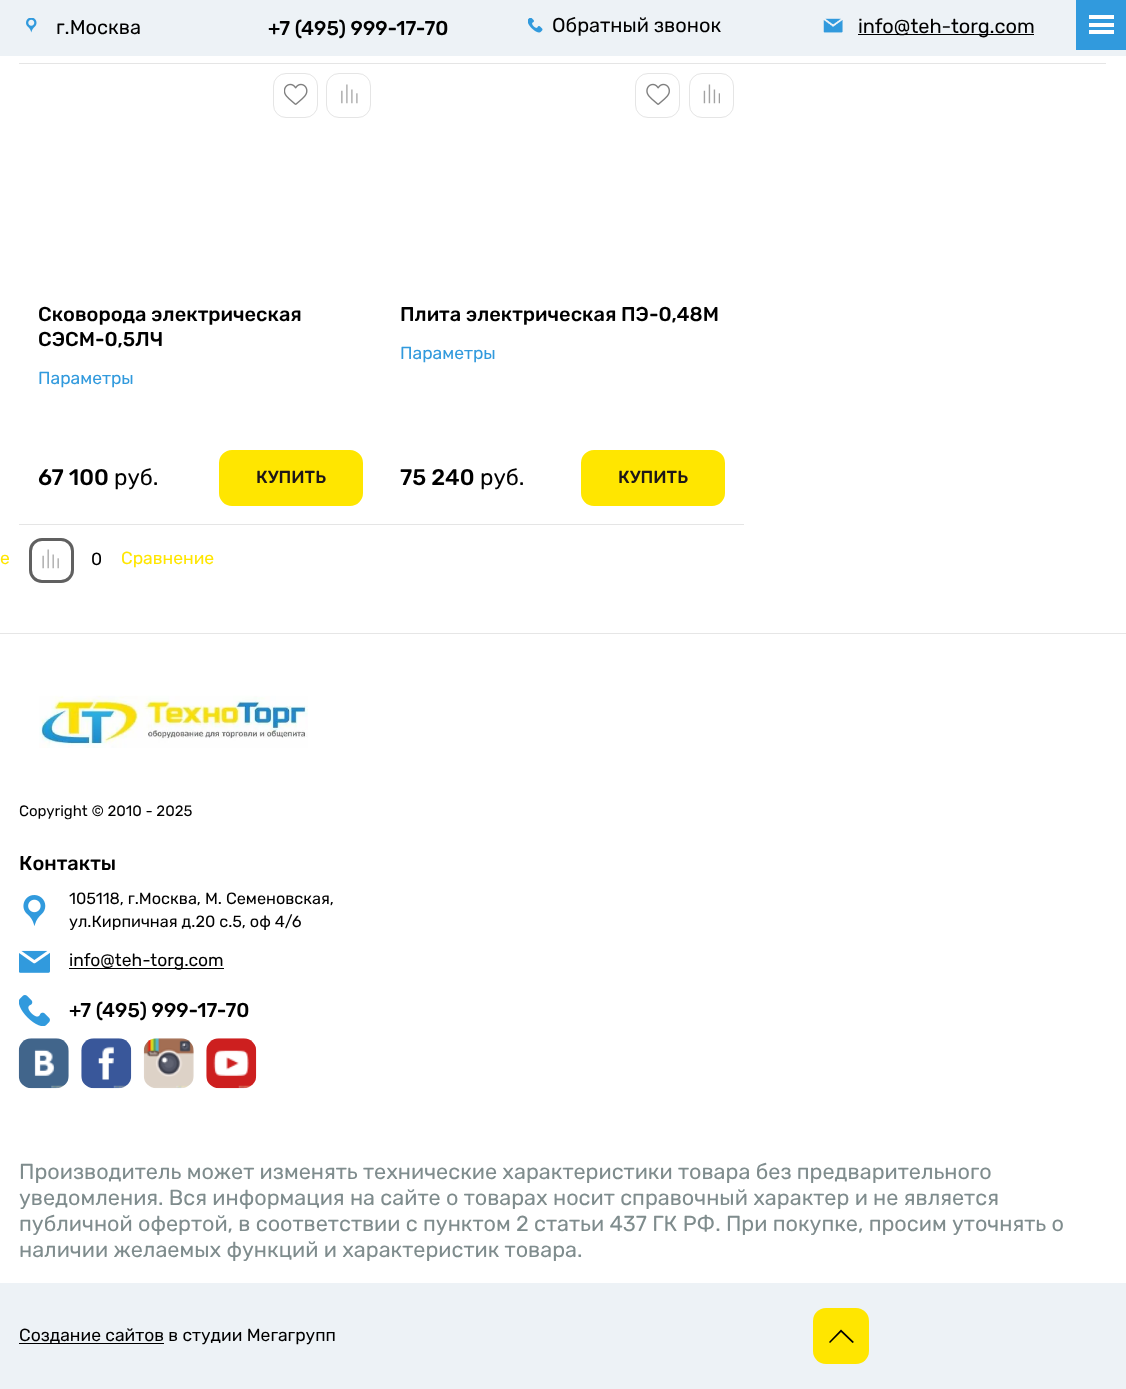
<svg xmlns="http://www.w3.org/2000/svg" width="1126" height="1389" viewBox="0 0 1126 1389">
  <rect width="100%" height="100%" fill="rgb(255,255,255)"/>
  <rect x="0" y="0" width="1126" height="56" fill="rgb(237,242,246)"/>
  <image x="26" y="18" width="11" height="15" href="pic1.png"/>
  <text x="56" y="34" font-family="Rubik" font-size="20" font-weight="300" fill="rgb(0,0,0)">г.Москва</text>
  <text x="268" y="35" font-family="'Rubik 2'" font-size="20" font-weight="300" fill="rgb(0,0,0)">+7 (495) 999-17-70</text>
  <image x="528" y="18" width="15" height="15" href="pic2.png"/>
  <text x="552" y="32" font-family="Rubik" font-size="20" font-weight="300" fill="rgb(0,0,0)">Обратный звонок</text>
  <image x="823" y="18" width="20" height="15" href="pic3.png"/>
  <rect x="858" y="34" width="176" height="1" fill="rgb(0,0,0)"/>
  <text x="858" y="33" font-family="Rubik" font-size="20" font-weight="300" fill="rgb(0,0,0)">info@teh-torg.com</text>
  <rect x="1076" y="0" width="50" height="50" fill="rgb(49,154,221)"/>
  <rect x="1089" y="15" width="25" height="4" fill="rgb(255,255,255)"/>
  <rect x="1089" y="23" width="25" height="4" fill="rgb(255,255,255)"/>
  <rect x="1089" y="30" width="25" height="4" fill="rgb(255,255,255)"/>
  <rect x="19" y="63" width="1087" height="1" fill="rgb(229,229,229)"/>
  <image x="284" y="83" width="24" height="22" href="pic4.png"/>
  <rect x="273.5" y="73.5" width="44" height="44" rx="12.5" fill="none" stroke="rgb(229,229,229)"/>
  <image x="341" y="84" width="17" height="20" href="pic5.png"/>
  <rect x="326.5" y="73.5" width="44" height="44" rx="12.5" fill="none" stroke="rgb(229,229,229)"/>
  <g font-family="'Rubik 2'" font-size="20" font-weight="300" fill="rgb(0,0,0)">
    <text>
      <tspan x="38" y="321">Сковорода электрическая</tspan>
      <tspan x="38" y="346">СЭСМ-0,5ЛЧ</tspan>
    </text>
  </g>
  <text x="38" y="384" font-family="Rubik" font-size="17.5" font-weight="300" fill="rgb(49,154,221)">Параметры</text>
  <text x="38" y="485" font-family="'Rubik 2'" font-size="22.5" font-weight="300" fill="rgb(0,0,0)">67 100</text>
  <text x="114" y="485" font-family="Rubik" font-size="22.5" font-weight="300" fill="rgb(0,0,0)">руб.</text>
  <rect x="220.5" y="451.5" width="141" height="53" rx="11.5" fill="rgb(255,230,0)" stroke="rgb(255,230,0)" stroke-width="3"/>
  <text x="256" y="483" font-family="'Rubik 2'" font-size="17.5" font-weight="300" fill="rgb(30,23,23)">КУПИТЬ</text>
  <rect x="19" y="524" width="725" height="1" fill="rgb(229,229,229)"/>
  <image x="646" y="83" width="24" height="22" href="pic6.png"/>
  <rect x="635.5" y="73.5" width="44" height="44" rx="12.5" fill="none" stroke="rgb(229,229,229)"/>
  <image x="703" y="84" width="17" height="20" href="pic7.png"/>
  <rect x="689.5" y="73.5" width="44" height="44" rx="12.5" fill="none" stroke="rgb(229,229,229)"/>
  <text x="400" y="321" font-family="'Rubik 2'" font-size="20" font-weight="300" fill="rgb(0,0,0)">Плита электрическая ПЭ-0,48М</text>
  <text x="400" y="359" font-family="Rubik" font-size="17.5" font-weight="300" fill="rgb(49,154,221)">Параметры</text>
  <text x="400" y="485" font-family="'Rubik 2'" font-size="22.5" font-weight="300" fill="rgb(0,0,0)">75 240</text>
  <text x="480" y="485" font-family="Rubik" font-size="22.5" font-weight="300" fill="rgb(0,0,0)">руб.</text>
  <rect x="582.5" y="451.5" width="141" height="53" rx="11.5" fill="rgb(255,230,0)" stroke="rgb(255,230,0)" stroke-width="3"/>
  <text x="618" y="483" font-family="'Rubik 2'" font-size="17.5" font-weight="300" fill="rgb(30,23,23)">КУПИТЬ</text>
  <text x="0" y="564" font-family="Rubik" font-size="17.5" font-weight="300" fill="rgb(255,230,0)">е</text>
  <image x="42" y="549" width="17" height="20" href="pic8.png"/>
  <rect x="30.5" y="539.5" width="42" height="42" rx="11.5" fill="none" stroke="rgb(96,96,96)" stroke-width="3"/>
  <text x="91" y="565" font-family="Rubik" font-size="17.5" font-weight="300" fill="rgb(0,0,0)">0</text>
  <text x="121" y="564" font-family="Rubik" font-size="17.5" font-weight="300" fill="rgb(255,230,0)">Сравнение</text>
  <rect x="0" y="633" width="1126" height="1" fill="rgb(230,230,230)"/>
  <image x="39" y="695" width="269" height="53" href="pic9.png"/>
  <text x="19" y="816" font-family="Rubik" font-size="15" font-weight="300" fill="rgb(0,0,0)">Copyright © 2010 - 2025</text>
  <text x="19" y="870" font-family="'Rubik 2'" font-size="20" font-weight="300" fill="rgb(0,0,0)">Контакты</text>
  <image x="23" y="895" width="23" height="31" href="pic10.png"/>
  <g font-family="Rubik" font-size="16.25" font-weight="300" fill="rgb(0,0,0)">
    <text>
      <tspan x="69" y="904">105118, г.Москва, М. Семеновская,</tspan>
      <tspan x="69" y="927">ул.Кирпичная д.20 с.5, оф 4/6</tspan>
    </text>
  </g>
  <image x="19" y="950" width="31" height="23" href="pic11.png"/>
  <rect x="69" y="968" width="155" height="1" fill="rgb(0,0,0)"/>
  <text x="69" y="966" font-family="Rubik" font-size="17.5" font-weight="300" fill="rgb(0,0,0)">info@teh-torg.com</text>
  <image x="19" y="995" width="31" height="31" href="pic12.png"/>
  <text x="69" y="1017" font-family="'Rubik 2'" font-size="20" font-weight="300" fill="rgb(0,0,0)">+7 (495) 999-17-70</text>
  <image x="18" y="1038" width="51" height="51" href="pic13.png"/>
  <image x="81" y="1038" width="51" height="51" href="pic14.png"/>
  <image x="143" y="1038" width="51" height="51" href="pic15.png"/>
  <image x="206" y="1038" width="51" height="51" href="pic16.png"/>
  <g font-family="Rubik" font-size="21.65" font-weight="300" fill="rgb(127,140,141)">
    <text>
      <tspan x="19" y="1179">Производитель может изменять технические характеристики товара без предварительного</tspan>
      <tspan x="19" y="1205">уведомления. Вся информация на сайте о товарах носит справочный характер и не является</tspan>
      <tspan x="19" y="1231">публичной офертой, в соответствии с пунктом 2 статьи 437 ГК РФ. При покупке, просим уточнять о</tspan>
      <tspan x="19" y="1257">наличии желаемых функций и характеристик товара.</tspan>
    </text>
  </g>
  <rect x="0" y="1283" width="1126" height="106" fill="rgb(237,242,246)"/>
  <rect x="19" y="1343" width="145" height="1" fill="rgb(0,0,0)"/>
  <text x="19" y="1341" font-family="Rubik" font-size="17.5" font-weight="300" fill="rgb(0,0,0)">Создание сайтов в студии Мегагрупп</text>
  <rect x="813" y="1308" width="56" height="56" rx="13" fill="rgb(255,230,0)"/>
  <path d="M841 1329.5L829 1342L830 1343L841 1332L852.5 1343L854 1342Z" fill="rgb(0,0,0)"/>
</svg>
